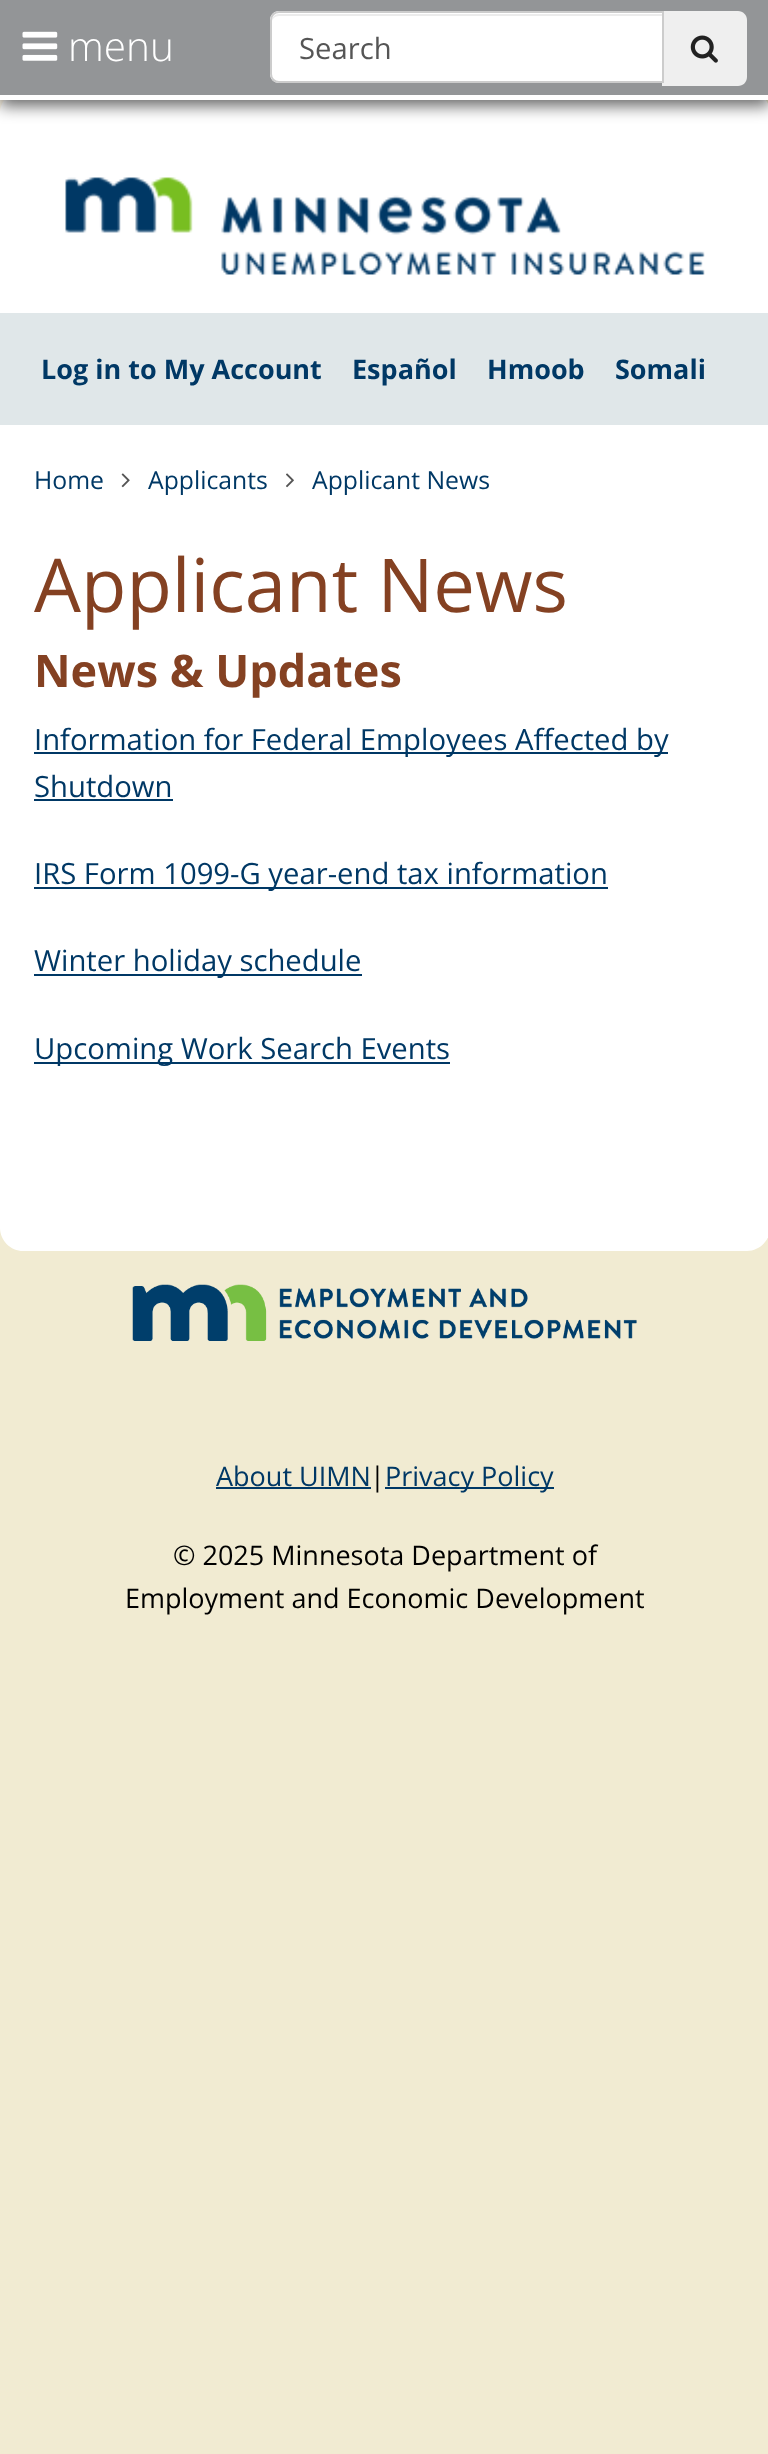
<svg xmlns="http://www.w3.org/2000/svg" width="768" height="2454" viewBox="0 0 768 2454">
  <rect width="100%" height="100%" fill="rgb(241,235,210)"/>
  <image x="0" y="100" width="4" height="13" href="pic1.png"/>
  <path d="M23 90H747C759.5 90 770 100.5 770 113V425H0V113C0 100.5 10.5 90 23 90Z" fill="rgb(255,255,255)"/>
  <rect x="0" y="313" width="768" height="112" fill="rgb(224,231,233)"/>
  <rect x="0" y="7" width="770" height="99" fill="rgba(0,0,0,0.6)" filter="blur(8px)"/>
  <rect x="0" y="0" width="768" height="95" fill="rgb(147,149,151)"/>
  <path d="M662 11H738C743 11 747 15 747 20V77C747 82 743 86 738 86H662Z" fill="rgb(239,239,239)"/>
  <path d="M279 11H664V83H279C274 83 270 79 270 74V20C270 15 274 11 279 11Z" fill="rgb(255,255,255)"/>
  <path d="M279 16H662V14H279C274 14 272 18 272 22C272 19 275 16 279 16Z" fill="rgb(236,236,236)"/>
  <path d="M279 12H663V82H279C274.5 82 271 78.5 271 74V20C271 15.5 274.5 12 279 12Z" fill="none" stroke="rgb(204,204,204)" stroke-width="2"/>
  <text x="299" y="59" font-family="Open Sans" font-size="29.25" fill="rgb(85,85,85)">Search</text>
  <image x="690" y="35" width="28" height="28" href="pic2.png"/>
  <g font-family="Open Sans" font-size="27" font-weight="bold" fill="rgb(0,56,101)">
    <text x="41" y="379">Log in to My Account</text>
    <text x="352" y="379">Español</text>
    <text x="487" y="379">Hmoob</text>
    <text x="615" y="379">Somali</text>
  </g>
  <image x="65" y="177" width="640" height="98" href="pic3.png"/>
  <rect x="0" y="95" width="768" height="5" fill="rgb(255,255,255)"/>
  <image x="22" y="31" width="36" height="30" href="pic4.png"/>
  <text x="68" y="61" font-family="Open Sans" font-size="40.5" font-weight="300" fill="rgb(255,255,255)">menu</text>
  <rect x="0" y="425" width="768" height="75" fill="rgb(255,255,255)"/>
  <text x="34" y="489" font-family="Open Sans" font-size="24.75" fill="rgb(0,56,101)">Home</text>
  <image x="121" y="473" width="9" height="15" href="pic5.png"/>
  <text x="148" y="489" font-family="Open Sans" font-size="24.75" fill="rgb(0,56,101)">Applicants</text>
  <image x="286" y="473" width="8" height="15" href="pic6.png"/>
  <text x="312" y="489" font-family="Open Sans" font-size="24.75" fill="rgb(0,56,101)">Applicant News</text>
  <path d="M0 500H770V1228C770 1240.5 759.5 1251 747 1251H23C10.5 1251 0 1240.5 0 1228Z" fill="rgb(255,255,255)"/>
  <text x="34" y="612" font-family="Open Sans" font-size="74.25" fill="rgb(132,65,34)">Applicant News</text>
  <text x="34" y="687" font-family="Open Sans" font-size="45" font-weight="bold" fill="rgb(132,65,34)">News &amp; Updates</text>
  <rect x="34" y="752" width="634" height="2" fill="rgb(0,56,101)"/>
  <g font-family="Open Sans" font-size="29.25" fill="rgb(0,56,101)">
    <text>
      <tspan x="34" y="750">Information for Federal Employees Affected by</tspan>
      <tspan x="34" y="797">Shutdown</tspan>
    </text>
  </g>
  <rect x="34" y="799" width="139" height="2" fill="rgb(0,56,101)"/>
  <rect x="34" y="887" width="574" height="2" fill="rgb(0,56,101)"/>
  <text x="34" y="884" font-family="Open Sans" font-size="29.25" fill="rgb(0,56,101)">IRS Form 1099-G year-end tax information</text>
  <rect x="34" y="974" width="328" height="2" fill="rgb(0,56,101)"/>
  <text x="34" y="971" font-family="Open Sans" font-size="29.25" fill="rgb(0,56,101)">Winter holiday schedule</text>
  <rect x="34" y="1062" width="416" height="2" fill="rgb(0,56,101)"/>
  <text x="34" y="1059" font-family="Open Sans" font-size="29.25" fill="rgb(0,56,101)">Upcoming Work Search Events</text>
  <image x="132" y="1284" width="505" height="57" href="pic7.png"/>
  <text x="216" y="1486" font-family="Open Sans" font-size="27" fill="rgb(0,56,101)">About UIMN</text>
  <rect x="216" y="1487" width="155" height="2" fill="rgb(0,56,101)"/>
  <text x="370" y="1486" font-family="Open Sans" font-size="27" fill="rgb(0,0,0)">|</text>
  <rect x="385" y="1487" width="169" height="2" fill="rgb(0,56,101)"/>
  <text x="385" y="1486" font-family="Open Sans" font-size="27" fill="rgb(0,56,101)">Privacy Policy</text>
  <g font-family="Open Sans" font-size="27" fill="rgb(0,0,0)">
    <text x="173" y="1565">© 2025 Minnesota Department of</text>
    <text x="125" y="1608">Employment and Economic Development</text>
  </g>
</svg>
